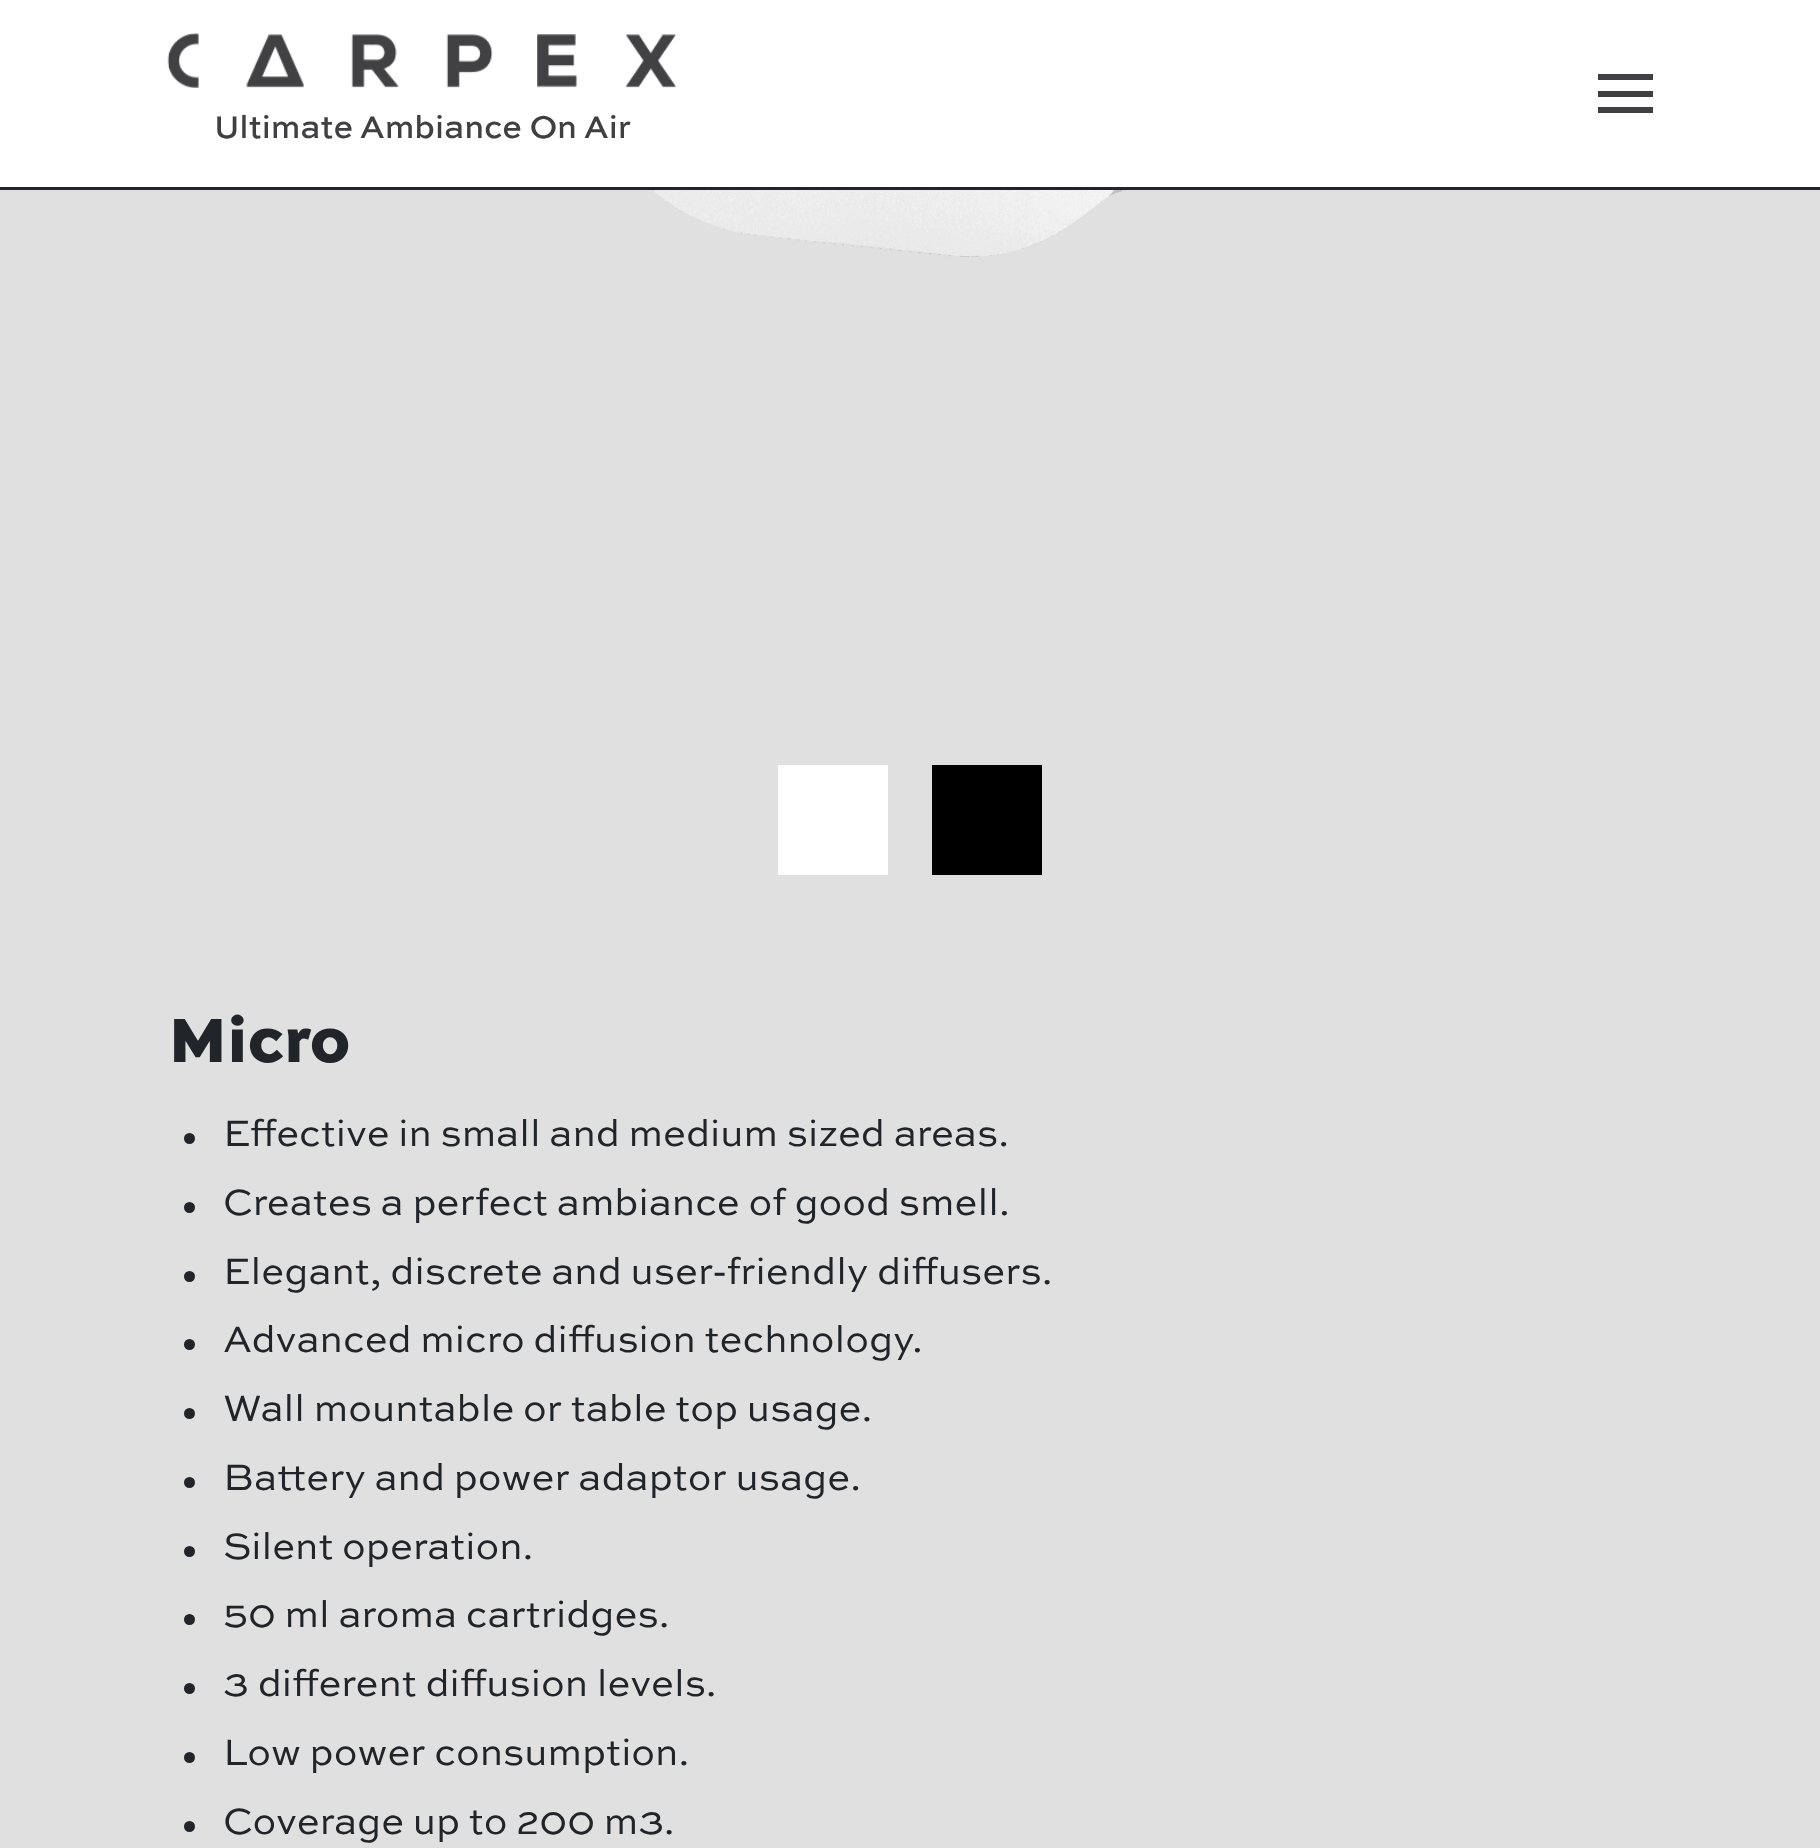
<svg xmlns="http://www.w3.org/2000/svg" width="1820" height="1848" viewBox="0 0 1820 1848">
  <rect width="100%" height="100%" fill="rgb(224,224,224)"/>
  <rect x="0" y="0" width="1820" height="187" fill="rgb(255,255,255)"/>
  <rect x="0" y="187" width="1820" height="3" fill="rgb(33,37,41)"/>
  <rect x="1598" y="91" width="55" height="6" fill="rgb(64,64,66)"/>
  <rect x="1598" y="74" width="55" height="6" fill="rgb(64,64,66)"/>
  <rect x="1598" y="107" width="55" height="6" fill="rgb(64,64,66)"/>
  <image x="167" y="33" width="509" height="55" href="pic1.png"/>
  <text x="214" y="138" font-family="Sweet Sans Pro" font-size="33" font-weight="500" fill="rgb(64,64,66)">Ultimate Ambiance On Air</text>
  <image x="651" y="190" width="474" height="67" href="pic2.png"/>
  <rect x="778" y="765" width="110" height="110" fill="rgb(255,255,255)"/>
  <rect x="932" y="765" width="110" height="110" fill="rgb(0,0,0)"/>
  <text x="168" y="1062" font-family="Sweet Sans Pro" font-size="66" font-weight="900" fill="rgb(33,37,41)">Micro</text>
  <circle cx="189.5" cy="1138.5" r="5.5" fill="rgb(33,37,41)"/>
  <text x="223" y="1146" font-family="Sweet Sans Pro" font-size="38.5" fill="rgb(33,37,41)">Effective in small and medium sized areas.</text>
  <circle cx="189.5" cy="1207.5" r="5.5" fill="rgb(33,37,41)"/>
  <text x="223" y="1215" font-family="Sweet Sans Pro" font-size="38.5" fill="rgb(33,37,41)">Creates a perfect ambiance of good smell.</text>
  <circle cx="189.5" cy="1276.5" r="5.5" fill="rgb(33,37,41)"/>
  <text x="223" y="1284" font-family="Sweet Sans Pro" font-size="38.5" fill="rgb(33,37,41)">Elegant, discrete and user-friendly diffusers.</text>
  <circle cx="189.5" cy="1344.5" r="5.5" fill="rgb(33,37,41)"/>
  <text x="223" y="1352" font-family="Sweet Sans Pro" font-size="38.5" fill="rgb(33,37,41)">Advanced micro diffusion technology.</text>
  <circle cx="189.5" cy="1413.5" r="5.5" fill="rgb(33,37,41)"/>
  <text x="223" y="1421" font-family="Sweet Sans Pro" font-size="38.5" fill="rgb(33,37,41)">Wall mountable or table top usage.</text>
  <circle cx="189.5" cy="1482.5" r="5.5" fill="rgb(33,37,41)"/>
  <text x="223" y="1490" font-family="Sweet Sans Pro" font-size="38.5" fill="rgb(33,37,41)">Battery and power adaptor usage.</text>
  <circle cx="189.5" cy="1551.5" r="5.5" fill="rgb(33,37,41)"/>
  <text x="223" y="1559" font-family="Sweet Sans Pro" font-size="38.5" fill="rgb(33,37,41)">Silent operation.</text>
  <circle cx="189.5" cy="1619.5" r="5.5" fill="rgb(33,37,41)"/>
  <text x="223" y="1627" font-family="Sweet Sans Pro" font-size="38.5" fill="rgb(33,37,41)">50 ml aroma cartridges.</text>
  <circle cx="189.5" cy="1688.5" r="5.5" fill="rgb(33,37,41)"/>
  <text x="223" y="1696" font-family="Sweet Sans Pro" font-size="38.5" fill="rgb(33,37,41)">3 different diffusion levels.</text>
  <circle cx="189.5" cy="1757.5" r="5.5" fill="rgb(33,37,41)"/>
  <text x="223" y="1765" font-family="Sweet Sans Pro" font-size="38.5" fill="rgb(33,37,41)">Low power consumption.</text>
  <circle cx="189.5" cy="1826.5" r="5.5" fill="rgb(33,37,41)"/>
  <text x="223" y="1834" font-family="Sweet Sans Pro" font-size="38.5" fill="rgb(33,37,41)">Coverage up to 200 m3.</text>
</svg>
